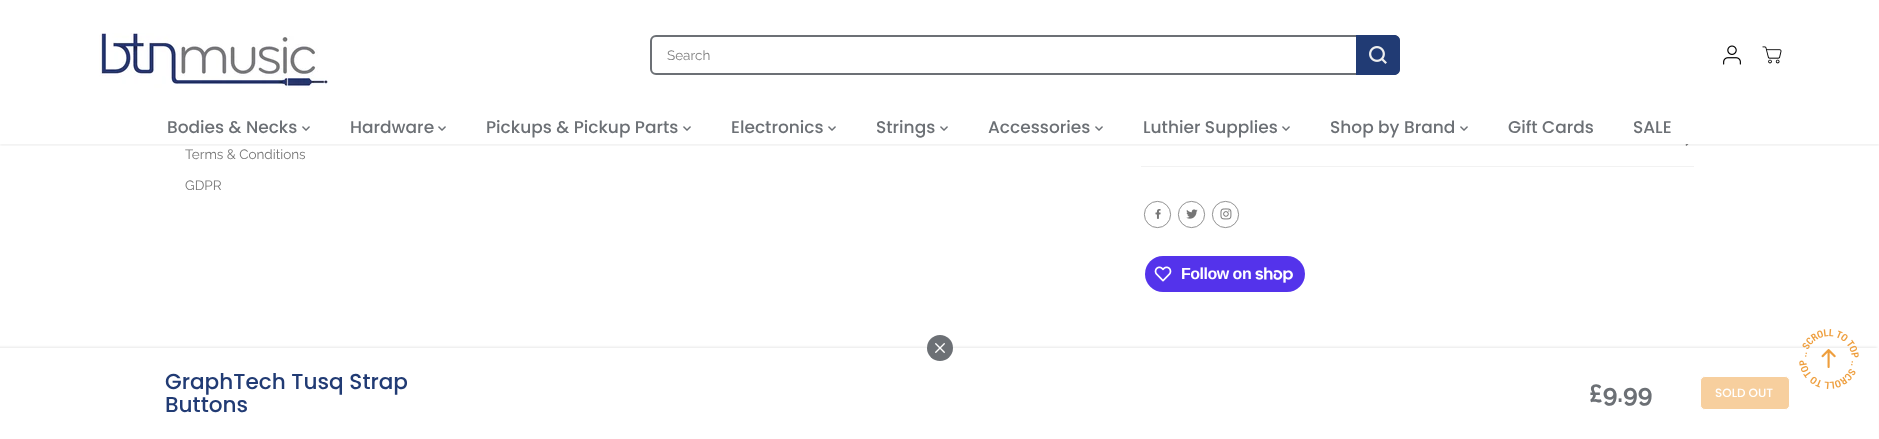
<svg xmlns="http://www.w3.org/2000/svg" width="1879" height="439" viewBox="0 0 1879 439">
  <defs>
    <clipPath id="clip1"><rect x="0" y="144" width="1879" height="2"/></clipPath>
  </defs>
  <rect width="100%" height="100%" fill="rgb(255,255,255)"/>
  <image x="1685" y="144" width="4" height="2" href="pic6.png"/>
  <g clip-path="url(#clip1)">
    <rect x="0" y="2" width="1879" height="144" fill="rgba(0,0,0,0.05)" filter="blur(1px)"/>
  </g>
  <image x="99" y="33" width="230" height="55" href="pic1.png"/>
  <rect x="651" y="36" width="748" height="38" rx="5" fill="none" stroke="rgb(108,112,117)" stroke-width="2"/>
  <text x="667" y="60" font-family="Raleway" font-size="13.5" fill="rgb(128,128,128)">Search</text>
  <path d="M1356 35H1394C1397.5 35 1400 37.5 1400 41V69C1400 72.5 1397.5 75 1394 75H1356Z" fill="rgb(33,59,116)"/>
  <image x="1369" y="46" width="18" height="18" href="pic2.png"/>
  <image x="1723" y="45" width="18" height="20" href="pic3.png"/>
  <image x="1762" y="46" width="20" height="18" href="pic4.png"/>
  <text x="167" y="133" font-family="Poppins" font-size="17" font-weight="500" fill="rgb(108,112,117)">Bodies &amp; Necks</text>
  <image x="302" y="126" width="8" height="5" href="pic5.png"/>
  <text x="350" y="133" font-family="Poppins" font-size="17" font-weight="500" fill="rgb(108,112,117)">Hardware</text>
  <image x="438" y="126" width="8" height="5" href="pic5.png"/>
  <text x="486" y="133" font-family="Poppins" font-size="17" font-weight="500" fill="rgb(108,112,117)">Pickups &amp; Pickup Parts</text>
  <image x="683" y="126" width="8" height="5" href="pic5.png"/>
  <text x="731" y="133" font-family="Poppins" font-size="17" font-weight="500" fill="rgb(108,112,117)">Electronics</text>
  <image x="828" y="126" width="8" height="5" href="pic5.png"/>
  <text x="876" y="133" font-family="Poppins" font-size="17" font-weight="500" fill="rgb(108,112,117)">Strings</text>
  <image x="940" y="126" width="8" height="5" href="pic5.png"/>
  <text x="988" y="133" font-family="Poppins" font-size="17" font-weight="500" fill="rgb(108,112,117)">Accessories</text>
  <image x="1095" y="126" width="8" height="5" href="pic5.png"/>
  <text x="1143" y="133" font-family="Poppins" font-size="17" font-weight="500" fill="rgb(108,112,117)">Luthier Supplies</text>
  <image x="1282" y="126" width="8" height="5" href="pic5.png"/>
  <text x="1330" y="133" font-family="Poppins" font-size="17" font-weight="500" fill="rgb(108,112,117)">Shop by Brand</text>
  <image x="1460" y="126" width="8" height="5" href="pic5.png"/>
  <g font-family="Poppins" font-size="17" font-weight="500" fill="rgb(108,112,117)">
    <text x="1508" y="133">Gift Cards</text>
    <text x="1633" y="133">SALE</text>
  </g>
  <g font-family="Raleway" font-size="13.5" fill="rgb(118,118,118)">
    <text x="185" y="159">Terms &amp; Conditions</text>
    <text x="185" y="190">GDPR</text>
  </g>
  <rect x="1141" y="166" width="553" height="1" fill="rgb(242,242,242)"/>
  <circle cx="1157.5" cy="214.5" r="13.1" fill="none" stroke="rgb(118,118,118)" stroke-width="0.8"/>
  <image x="1155" y="209" width="6" height="10" href="pic7.png"/>
  <circle cx="1191.5" cy="214.5" r="13.1" fill="none" stroke="rgb(118,118,118)" stroke-width="0.8"/>
  <image x="1186" y="209" width="12" height="10" href="pic8.png"/>
  <circle cx="1225.5" cy="214.5" r="13.1" fill="none" stroke="rgb(118,118,118)" stroke-width="0.8"/>
  <image x="1220" y="208" width="12" height="12" href="pic9.png"/>
  <rect x="1145" y="256" width="160" height="36" rx="18" fill="rgb(84,51,235)"/>
  <image x="1154" y="266" width="18" height="16" href="pic10.png"/>
  <text x="1181" y="279" font-family="Liberation Sans" font-size="16" font-weight="bold" letter-spacing="-0.5" fill="rgb(255,255,255)">Follow on</text>
  <image x="1255" y="267" width="38" height="16" href="pic11.png"/>
  <rect x="-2" y="347" width="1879" height="91" fill="rgba(0,0,0,0.09)" filter="blur(1px)"/>
  <rect x="0" y="348" width="1878" height="91" fill="rgb(255,255,255)"/>
  <g font-family="Poppins" font-size="21.6" font-weight="500" fill="rgb(33,59,116)">
    <text>
      <tspan x="165" y="389">GraphTech Tusq Strap</tspan>
      <tspan x="165" y="412">Buttons</tspan>
    </text>
  </g>
  <circle cx="940" cy="348" r="13" fill="rgb(108,112,117)"/>
  <image x="935" y="343" width="10" height="10" href="pic12.png"/>
  <text x="1589" y="402" font-family="Raleway" font-size="25" font-weight="bold" fill="rgb(108,112,117)">£9.99</text>
  <rect x="1700.5" y="376.5" width="89" height="33" rx="4.5" fill="rgb(247,207,158)" stroke="rgb(255,255,255)"/>
  <text x="1715" y="397" font-family="Poppins" font-size="12" font-weight="500" fill="rgb(255,255,255)">SOLD OUT</text>
  <image x="1821" y="349" width="15" height="19" href="pic14.png"/>
  <image x="1799" y="329" width="60" height="60" href="pic13.png"/>
</svg>
